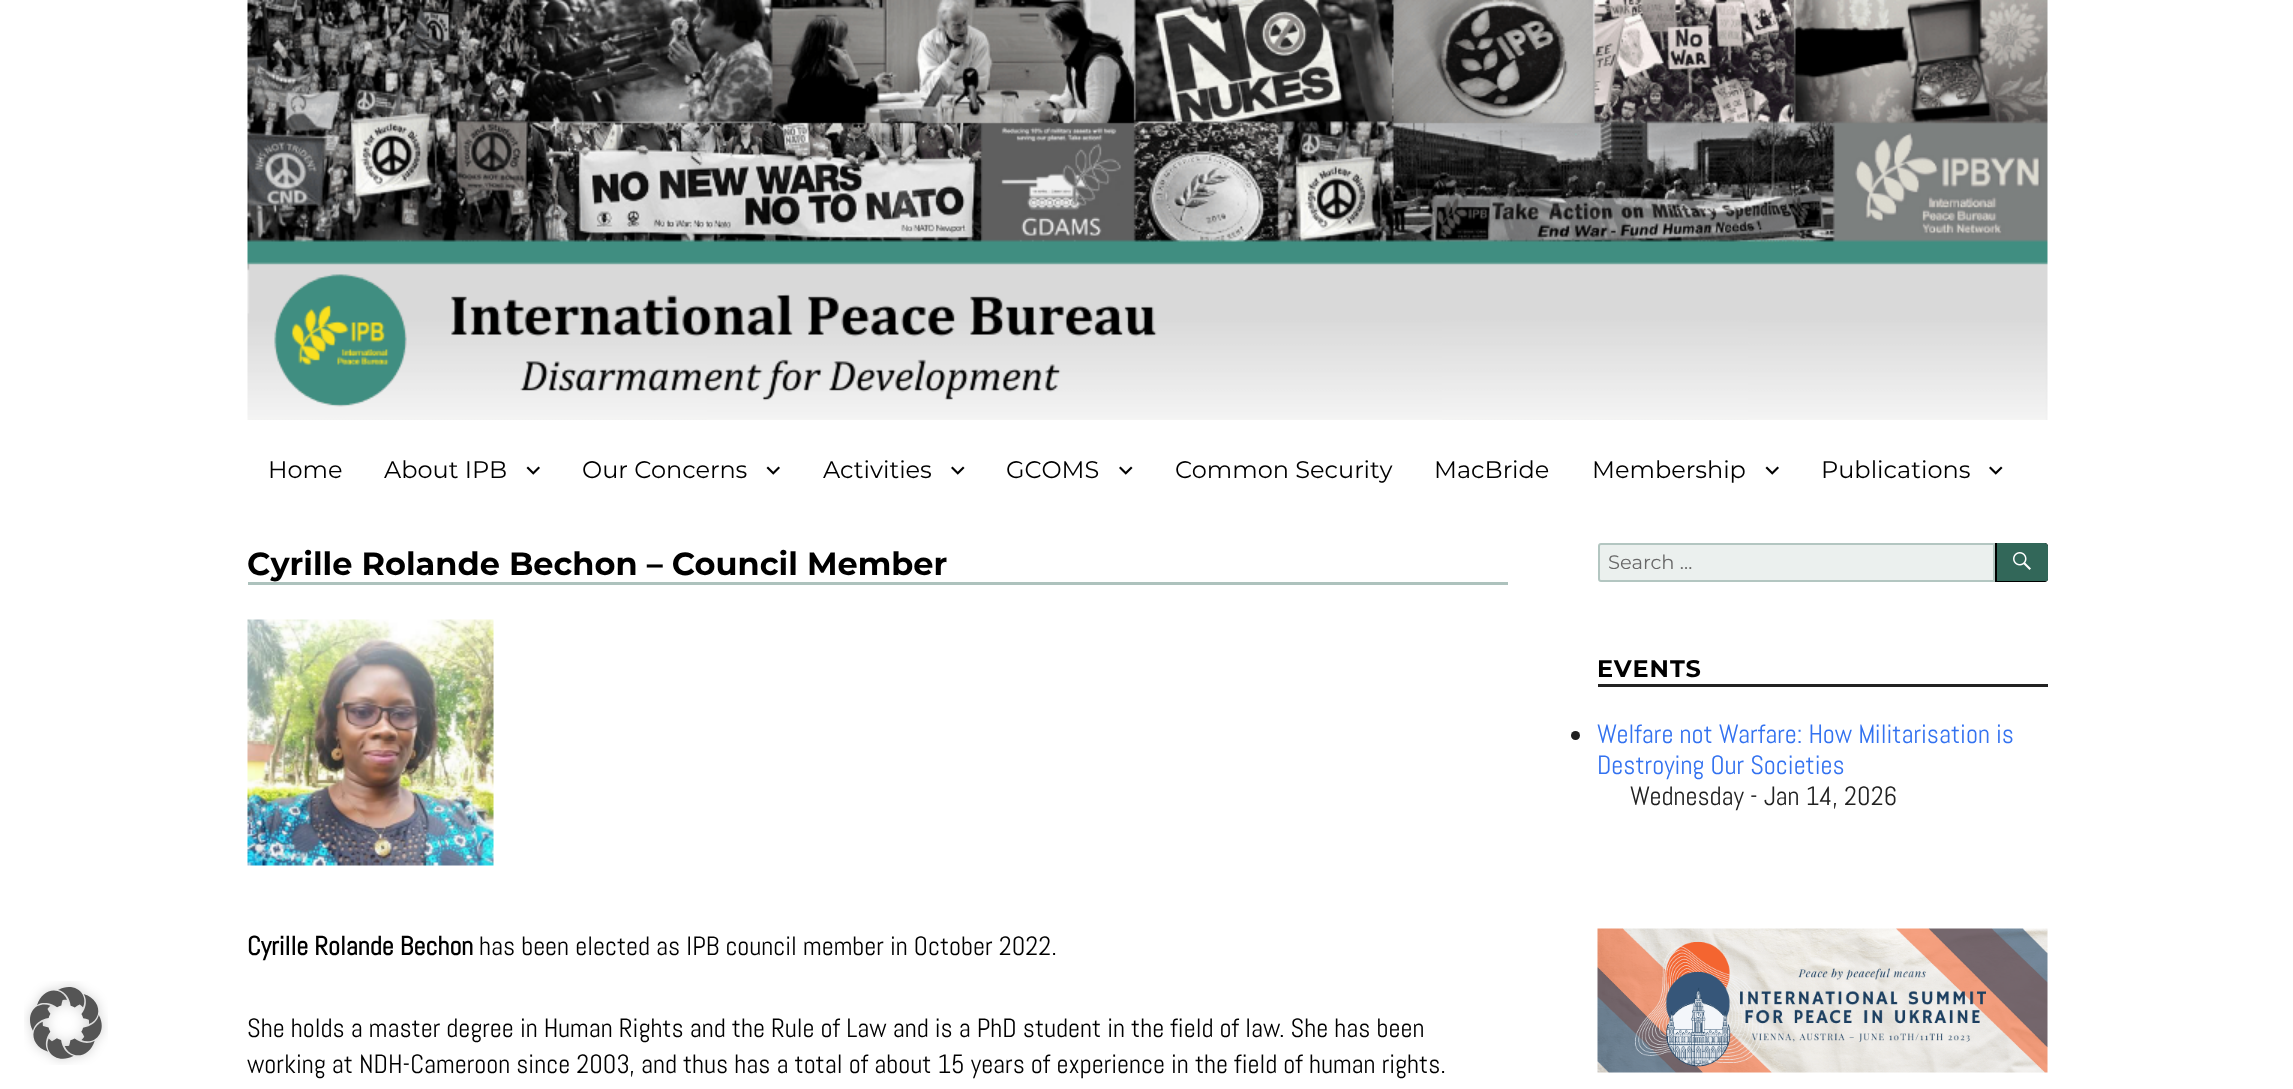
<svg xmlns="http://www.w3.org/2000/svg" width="2293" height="1089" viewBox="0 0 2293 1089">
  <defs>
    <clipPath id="clip1"><path d="M1995 543H2045C2046.5 543 2048 544.5 2048 546V579C2048 580.5 2046.5 582 2045 582H1995Z"/></clipPath>
  </defs>
  <rect width="100%" height="100%" fill="rgb(255,255,255)"/>
  <image x="24" y="981" width="84" height="84" href="pic1.png"/>
  <image x="247" y="0" width="1801" height="420" href="pic2.png"/>
  <g font-family="'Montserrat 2'" font-size="24" font-weight="100" fill="rgb(0,0,0)">
    <text x="268" y="478">Home</text>
    <text x="384" y="478">About IPB</text>
  </g>
  <image x="526" y="466" width="14" height="9" href="pic3.png"/>
  <text x="582" y="478" font-family="'Montserrat 2'" font-size="24" font-weight="100" fill="rgb(0,0,0)">Our Concerns</text>
  <image x="766" y="466" width="14" height="9" href="pic3.png"/>
  <text x="823" y="478" font-family="'Montserrat 2'" font-size="24" font-weight="100" fill="rgb(0,0,0)">Activities</text>
  <image x="951" y="466" width="14" height="9" href="pic4.png"/>
  <text x="1006" y="478" font-family="'Montserrat 2'" font-size="24" font-weight="100" fill="rgb(0,0,0)">GCOMS</text>
  <image x="1119" y="466" width="14" height="9" href="pic4.png"/>
  <g font-family="'Montserrat 2'" font-size="24" font-weight="100" fill="rgb(0,0,0)">
    <text x="1175" y="478">Common Security</text>
    <text x="1434" y="478">MacBride</text>
    <text x="1592" y="478">Membership</text>
  </g>
  <image x="1765" y="466" width="14" height="9" href="pic3.png"/>
  <text x="1821" y="478" font-family="'Montserrat 2'" font-size="24" font-weight="100" fill="rgb(0,0,0)">Publications</text>
  <image x="1989" y="466" width="14" height="9" href="pic4.png"/>
  <rect x="248" y="582" width="1260" height="3" fill="rgb(173,194,189)"/>
  <text x="247" y="575" font-family="Montserrat" font-size="32" font-weight="100" fill="rgb(0,0,0)">Cyrille Rolande Bechon – Council Member</text>
  <image x="247" y="619" width="247" height="247" href="pic5.png"/>
  <text x="247" y="955" font-family="Abel" font-size="26.4" font-weight="bold" fill="rgb(0,0,0)">Cyrille Rolande Bechon</text>
  <g font-family="Abel" font-size="26.4" fill="rgb(0,0,0)">
    <text x="479" y="955">has been elected as IPB council member in October 2022.</text>
    <text>
      <tspan x="247" y="1037">She holds a master degree in Human Rights and the Rule of Law and is a PhD student in the field of law. She has been</tspan>
      <tspan x="247" y="1073">working at NDH-Cameroon since 2003, and thus has a total of about 15 years of experience in the field of human rights.</tspan>
    </text>
  </g>
  <path d="M1601 543H1995V582H1601C1599.5 582 1598 580.5 1598 579V546C1598 544.5 1599.5 543 1601 543Z" fill="rgb(235,240,238)"/>
  <path d="M1601 544H1994V581H1601C1600 581 1599 580 1599 579V546C1599 545 1600 544 1601 544Z" fill="none" stroke="rgba(50,103,89,0.3)" stroke-width="2"/>
  <text x="1608" y="569" font-family="'Montserrat 2'" font-size="19.5" font-weight="100" fill="rgb(104,104,104)">Search …</text>
  <path d="M1995 543H2045C2046.5 543 2048 544.5 2048 546V579C2048 580.5 2046.5 582 2045 582H1995Z" fill="rgb(0,0,0)"/>
  <g clip-path="url(#clip1)">
    <path d="M1997 543H2045C2046.5 543 2048 544.5 2048 546V581H1997Z" fill="rgb(50,103,89)"/>
  </g>
  <image x="2013" y="552" width="18" height="18" href="pic6.png"/>
  <rect x="1598" y="684" width="450" height="3" fill="rgb(34,34,34)"/>
  <text x="1597" y="677" font-family="Montserrat" font-size="24" font-weight="100" letter-spacing="1" fill="rgb(0,0,0)">EVENTS</text>
  <circle cx="1575.5" cy="735.5" r="4.5" fill="rgb(33,33,33)"/>
  <g font-family="Abel" font-size="26.4" fill="rgb(51,114,240)">
    <text>
      <tspan x="1597" y="743">Welfare not Warfare: How Militarisation is</tspan>
      <tspan x="1597" y="774">Destroying Our Societies</tspan>
    </text>
  </g>
  <text x="1630" y="805" font-family="Abel" font-size="26.4" fill="rgb(33,33,33)">Wednesday - Jan 14, 2026</text>
  <image x="1597" y="928" width="451" height="145" href="pic7.png"/>
</svg>
